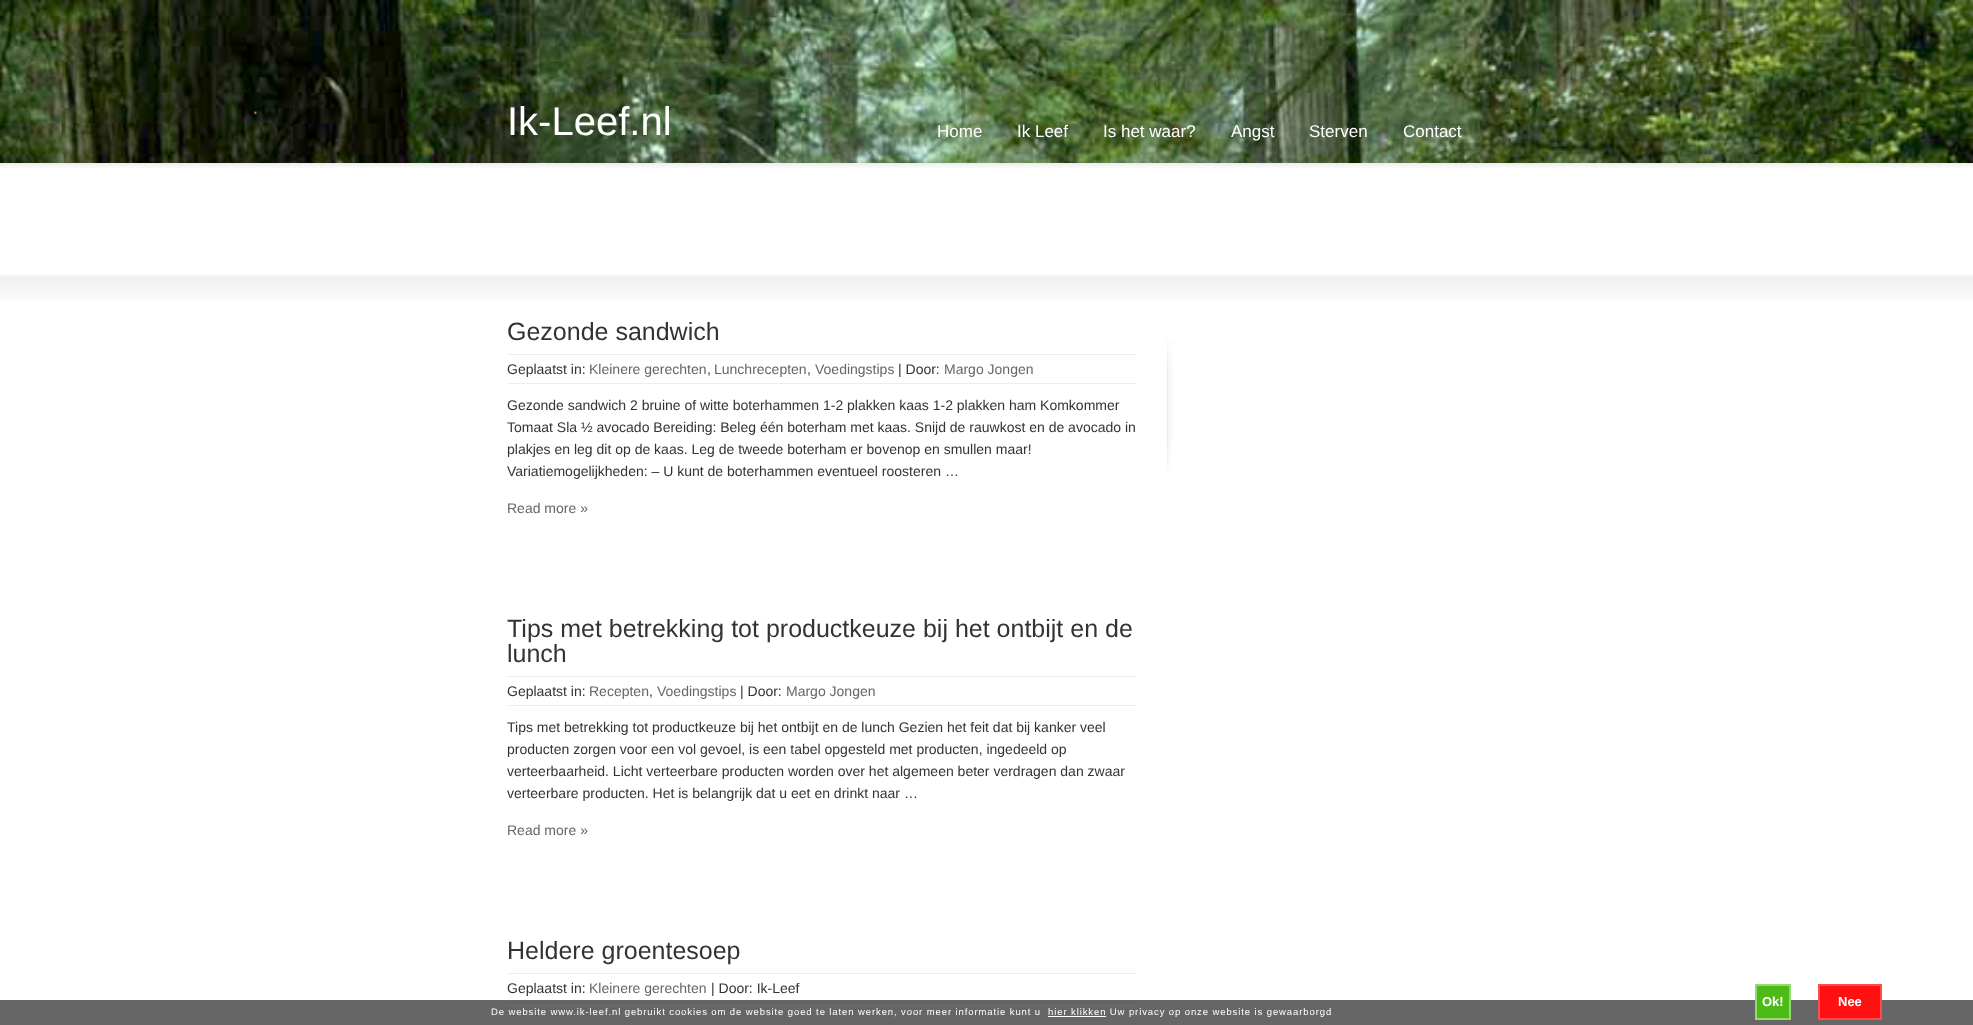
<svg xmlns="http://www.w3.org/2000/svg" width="1973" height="1025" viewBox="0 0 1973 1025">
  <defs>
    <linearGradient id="g1" gradientUnits="userSpaceOnUse" x1="987" y1="279" x2="987" y2="306"><stop offset="0" stop-color="rgb(240,240,240)"/><stop offset="1" stop-color="rgb(255,255,255)"/></linearGradient>
  </defs>
  <rect width="100%" height="100%" fill="rgb(255,255,255)"/>
  <rect x="0" y="1000" width="1973" height="25" fill="rgb(102,102,102)"/>
  <image x="0" y="0" width="1973" height="163" href="pic1.png"/>
  <text x="507" y="135" font-family="Liberation Sans" font-size="40" fill="rgb(255,255,255)">Ik-Leef.nl</text>
  <g font-family="Liberation Sans" font-size="17" fill="rgb(255,255,255)">
    <text x="937" y="137">Home</text>
    <text x="1017" y="137">Ik Leef</text>
    <text x="1103" y="137">Is het waar?</text>
    <text x="1231" y="137">Angst</text>
    <text x="1309" y="137">Sterven</text>
    <text x="1403" y="137">Contact</text>
  </g>
  <image x="0" y="163" width="1973" height="5" href="pic2.png"/>
  <image x="0" y="274" width="1973" height="5" href="pic3.png"/>
  <rect x="0" y="279" width="1973" height="23" fill="url(#g1)"/>
  <text x="507" y="340" font-family="Liberation Sans" font-size="25" fill="rgb(51,51,51)">Gezonde sandwich</text>
  <rect x="507" y="354" width="630" height="1" fill="rgb(238,238,238)"/>
  <rect x="507" y="383" width="630" height="1" fill="rgb(238,238,238)"/>
  <text x="507" y="374" font-family="Liberation Sans" font-size="14" fill="rgb(51,51,51)">Geplaatst in:</text>
  <text x="589" y="374" font-family="Liberation Sans" font-size="14" fill="rgb(102,102,102)">Kleinere gerechten</text>
  <text x="707" y="374" font-family="Liberation Sans" font-size="14" fill="rgb(51,51,51)">,</text>
  <text x="714" y="374" font-family="Liberation Sans" font-size="14" fill="rgb(102,102,102)">Lunchrecepten</text>
  <text x="807" y="374" font-family="Liberation Sans" font-size="14" fill="rgb(51,51,51)">,</text>
  <text x="815" y="374" font-family="Liberation Sans" font-size="14" fill="rgb(102,102,102)">Voedingstips</text>
  <text x="898" y="374" font-family="Liberation Sans" font-size="14" fill="rgb(51,51,51)">| Door:</text>
  <text x="944" y="374" font-family="Liberation Sans" font-size="14" fill="rgb(102,102,102)">Margo Jongen</text>
  <g font-family="Liberation Sans" font-size="14" fill="rgb(51,51,51)">
    <text>
      <tspan x="507" y="410">Gezonde sandwich 2 bruine of witte boterhammen 1-2 plakken kaas 1-2 plakken ham Komkommer</tspan>
      <tspan x="507" y="432">Tomaat Sla ½ avocado Bereiding: Beleg één boterham met kaas. Snijd de rauwkost en de avocado in</tspan>
      <tspan x="507" y="454">plakjes en leg dit op de kaas. Leg de tweede boterham er bovenop en smullen maar!</tspan>
      <tspan x="507" y="476">Variatiemogelijkheden: – U kunt de boterhammen eventueel roosteren …</tspan>
    </text>
  </g>
  <text x="507" y="513" font-family="Liberation Sans" font-size="14" fill="rgb(102,102,102)">Read more »</text>
  <g font-family="Liberation Sans" font-size="25" fill="rgb(51,51,51)">
    <text>
      <tspan x="507" y="637">Tips met betrekking tot productkeuze bij het ontbijt en de</tspan>
      <tspan x="507" y="662">lunch</tspan>
    </text>
  </g>
  <rect x="507" y="676" width="630" height="1" fill="rgb(238,238,238)"/>
  <rect x="507" y="705" width="630" height="1" fill="rgb(238,238,238)"/>
  <text x="507" y="696" font-family="Liberation Sans" font-size="14" fill="rgb(51,51,51)">Geplaatst in:</text>
  <text x="589" y="696" font-family="Liberation Sans" font-size="14" fill="rgb(102,102,102)">Recepten</text>
  <text x="649" y="696" font-family="Liberation Sans" font-size="14" fill="rgb(51,51,51)">,</text>
  <text x="657" y="696" font-family="Liberation Sans" font-size="14" fill="rgb(102,102,102)">Voedingstips</text>
  <text x="740" y="696" font-family="Liberation Sans" font-size="14" fill="rgb(51,51,51)">| Door:</text>
  <text x="786" y="696" font-family="Liberation Sans" font-size="14" fill="rgb(102,102,102)">Margo Jongen</text>
  <g font-family="Liberation Sans" font-size="14" fill="rgb(51,51,51)">
    <text>
      <tspan x="507" y="732">Tips met betrekking tot productkeuze bij het ontbijt en de lunch Gezien het feit dat bij kanker veel</tspan>
      <tspan x="507" y="754">producten zorgen voor een vol gevoel, is een tabel opgesteld met producten, ingedeeld op</tspan>
      <tspan x="507" y="776">verteerbaarheid. Licht verteerbare producten worden over het algemeen beter verdragen dan zwaar</tspan>
      <tspan x="507" y="798">verteerbare producten. Het is belangrijk dat u eet en drinkt naar …</tspan>
    </text>
  </g>
  <text x="507" y="835" font-family="Liberation Sans" font-size="14" fill="rgb(102,102,102)">Read more »</text>
  <text x="507" y="959" font-family="Liberation Sans" font-size="25" fill="rgb(51,51,51)">Heldere groentesoep</text>
  <rect x="507" y="973" width="630" height="1" fill="rgb(238,238,238)"/>
  <rect x="507" y="1002" width="630" height="1" fill="rgb(95,95,95)"/>
  <text x="507" y="993" font-family="Liberation Sans" font-size="14" fill="rgb(51,51,51)">Geplaatst in:</text>
  <text x="589" y="993" font-family="Liberation Sans" font-size="14" fill="rgb(102,102,102)">Kleinere gerechten</text>
  <text x="711" y="993" font-family="Liberation Sans" font-size="14" fill="rgb(51,51,51)">| Door: Ik-Leef</text>
  <image x="1167" y="340" width="6" height="101" href="pic4.png"/>
  <image x="1167" y="441" width="4" height="29" href="pic5.png"/>
  <rect x="1756" y="985" width="34" height="34" fill="rgb(76,187,23)" stroke="rgb(147,219,112)" stroke-width="2"/>
  <text x="1762" y="1006" font-family="Liberation Sans" font-size="13" font-weight="bold" fill="rgb(255,255,255)">Ok!</text>
  <rect x="1819" y="985" width="62" height="34" fill="rgb(255,17,17)" stroke="rgb(255,77,77)" stroke-width="2"/>
  <text x="1838" y="1006" font-family="Liberation Sans" font-size="13" font-weight="bold" fill="rgb(255,255,255)">Nee</text>
  <text x="491" y="1015" font-family="Liberation Sans" font-size="9.5" letter-spacing="0.9" fill="rgb(255,255,255)">De website www.ik-leef.nl gebruikt cookies om de website goed te laten werken, voor meer informatie kunt u</text>
  <rect x="1048" y="1016" width="58" height="1" fill="rgb(255,255,255)"/>
  <text x="1048" y="1015" font-family="Liberation Sans" font-size="9.5" letter-spacing="0.9" fill="rgb(255,255,255)">hier klikken Uw privacy op onze website is gewaarborgd</text>
</svg>
